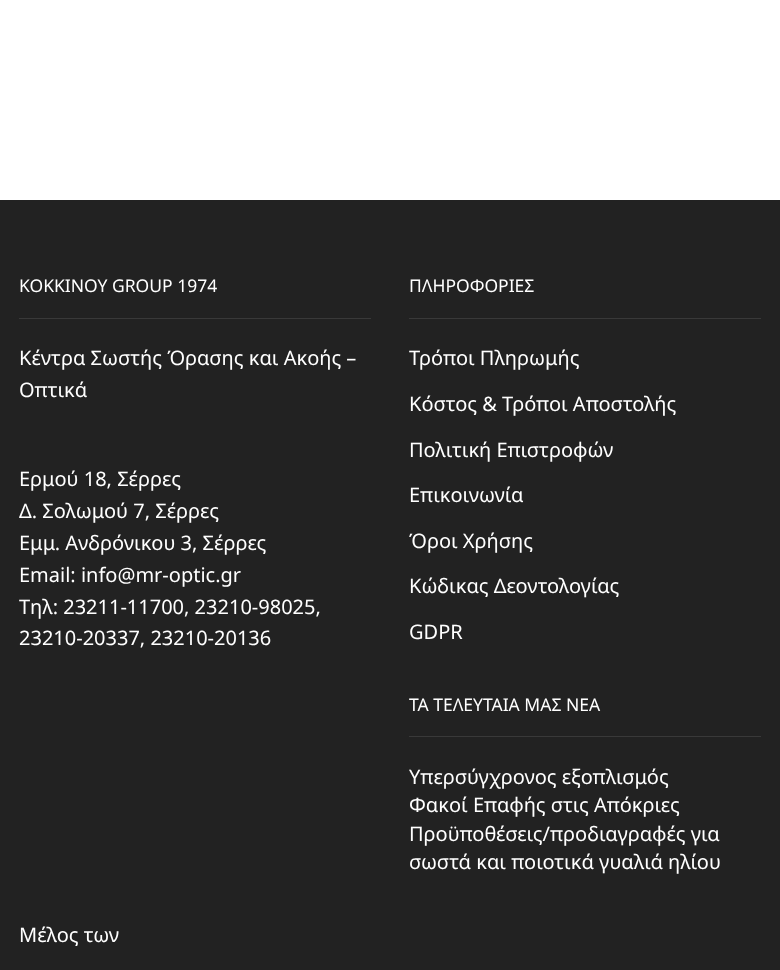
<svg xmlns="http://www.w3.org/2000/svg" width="780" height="970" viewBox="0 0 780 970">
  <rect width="100%" height="100%" fill="rgb(255,255,255)"/>
  <rect x="0" y="200" width="780" height="770" fill="rgb(34,34,34)"/>
  <rect x="19" y="318" width="352" height="1" fill="rgb(57,57,57)"/>
  <text x="19" y="292" font-family="Noto Sans" font-size="17.5" fill="rgb(255,255,255)">ΚΟΚΚΙΝΟΥ GROUP 1974</text>
  <g font-family="Noto Sans" font-size="20" fill="rgb(255,255,255)">
    <text>
      <tspan x="19" y="365">Κέντρα Σωστής Όρασης και Ακοής –</tspan>
      <tspan x="19" y="397">Οπτικά</tspan>
    </text>
    <text>
      <tspan x="19" y="486">Ερμού 18, Σέρρες</tspan>
      <tspan x="19" y="518">Δ. Σολωμού 7, Σέρρες</tspan>
      <tspan x="19" y="550">Εμμ. Ανδρόνικου 3, Σέρρες</tspan>
      <tspan x="19" y="582">Email: info@mr-optic.gr</tspan>
      <tspan x="19" y="614">Τηλ: 23211-11700, 23210-98025,</tspan>
      <tspan x="19" y="645">23210-20337, 23210-20136</tspan>
    </text>
  </g>
  <rect x="409" y="318" width="352" height="1" fill="rgb(57,57,57)"/>
  <text x="409" y="292" font-family="Noto Sans" font-size="17.5" fill="rgb(255,255,255)">ΠΛΗΡΟΦΟΡΙΕΣ</text>
  <g font-family="Noto Sans" font-size="20" fill="rgb(255,255,255)">
    <text x="409" y="365">Τρόποι Πληρωμής</text>
    <text x="409" y="411">Κόστος &amp; Τρόποι Αποστολής</text>
    <text x="409" y="457">Πολιτική Επιστροφών</text>
    <text x="409" y="502">Επικοινωνία</text>
    <text x="409" y="548">Όροι Χρήσης</text>
    <text x="409" y="593">Κώδικας Δεοντολογίας</text>
    <text x="409" y="639">GDPR</text>
  </g>
  <rect x="409" y="736" width="352" height="1" fill="rgb(57,57,57)"/>
  <text x="409" y="711" font-family="Noto Sans" font-size="17.5" fill="rgb(255,255,255)">ΤΑ ΤΕΛΕΥΤΑΙΑ ΜΑΣ ΝΕΑ</text>
  <g font-family="Noto Sans" font-size="20" fill="rgb(255,255,255)">
    <text>
      <tspan x="409" y="784">Υπερσύγχρονος εξοπλισμός</tspan>
      <tspan x="409" y="812">Φακοί Επαφής στις Απόκριες</tspan>
      <tspan x="409" y="841">Προϋποθέσεις/προδιαγραφές για</tspan>
      <tspan x="409" y="869">σωστά και ποιοτικά γυαλιά ηλίου</tspan>
    </text>
    <text x="19" y="942">Μέλος των</text>
  </g>
</svg>
